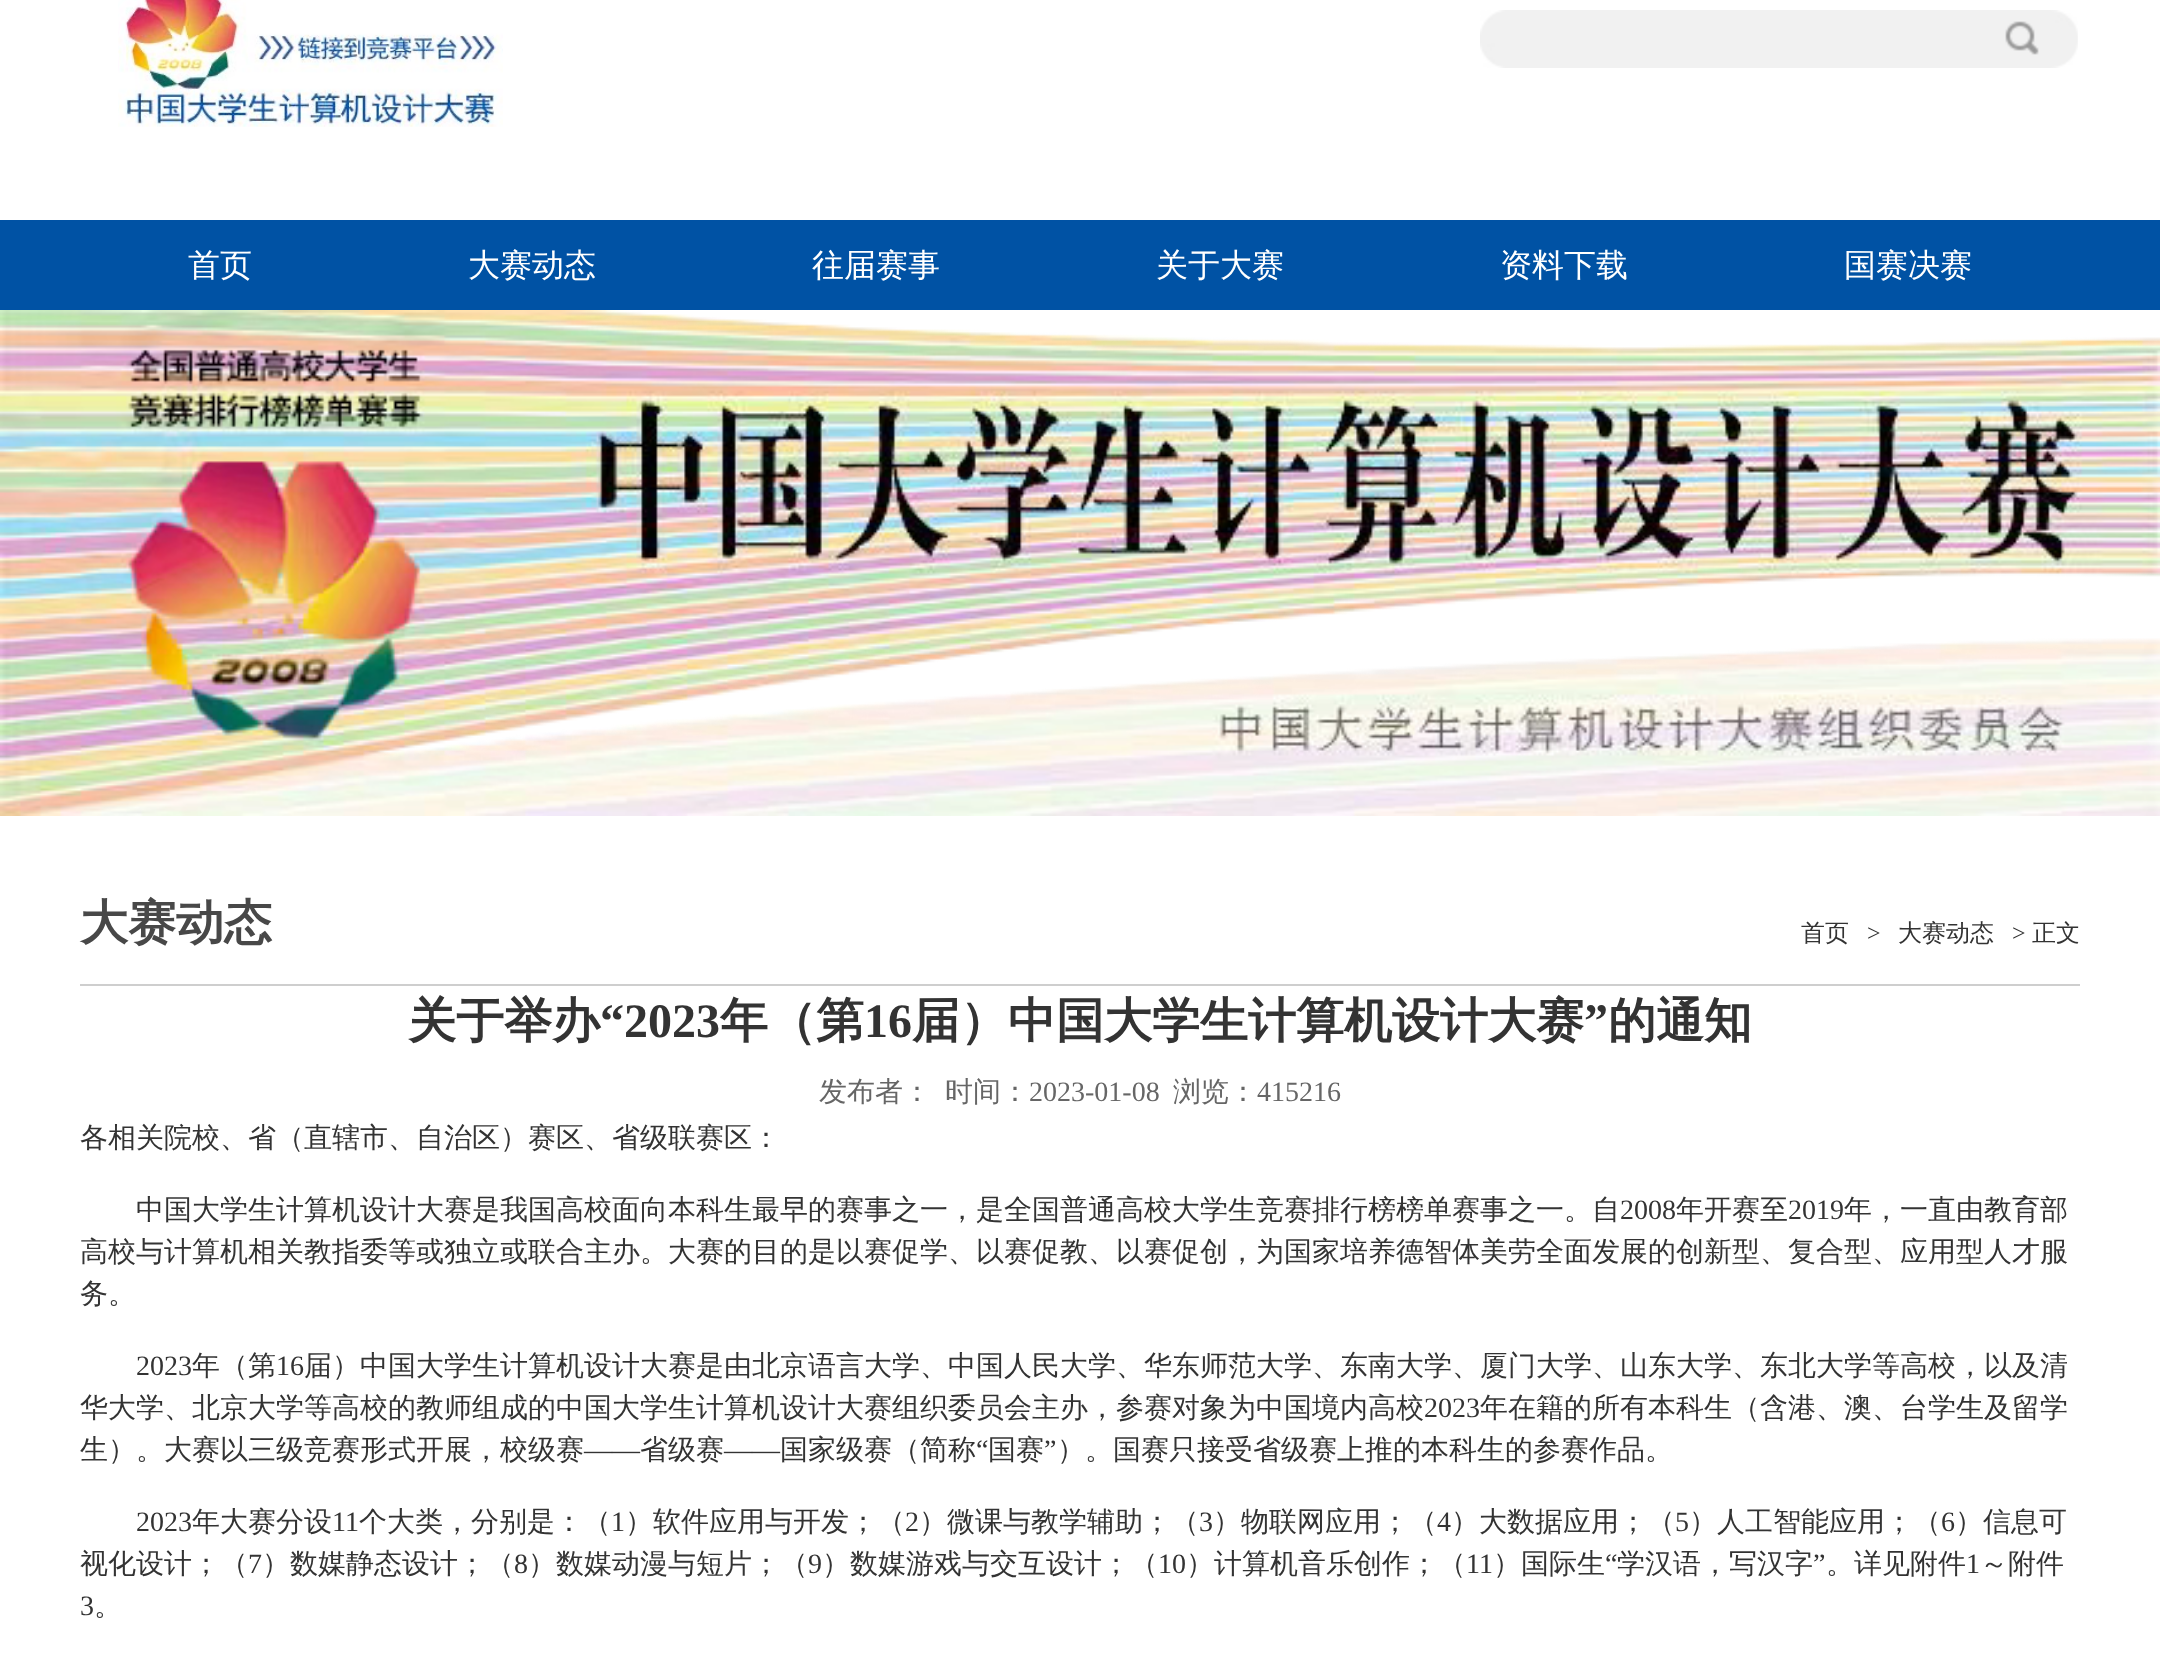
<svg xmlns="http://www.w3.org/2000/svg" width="2160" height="1658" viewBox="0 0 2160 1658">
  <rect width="100%" height="100%" fill="rgb(255,255,255)"/>
  <image x="118" y="0" width="385" height="127" href="pic1.png"/>
  <image x="1480" y="10" width="598" height="58" href="pic2.png"/>
  <image x="2005" y="21" width="34" height="34" href="pic3.png"/>
  <rect x="0" y="220" width="2160" height="90" fill="rgb(0,82,164)"/>
  <g font-family="WenQuanYi Zen Hei" font-size="32" font-weight="500" fill="rgb(255,255,255)">
    <text x="188" y="276">首页</text>
    <text x="468" y="276">大赛动态</text>
    <text x="812" y="276">往届赛事</text>
    <text x="1156" y="276">关于大赛</text>
    <text x="1500" y="276">资料下载</text>
    <text x="1844" y="276">国赛决赛</text>
  </g>
  <image x="0" y="310" width="2160" height="506" href="pic4.png"/>
  <rect x="80" y="984" width="2000" height="2" fill="rgb(206,206,206)"/>
  <text x="80" y="939" font-family="WenQuanYi Zen Hei" font-size="48" font-weight="bold" fill="rgb(72,72,72)">大赛动态</text>
  <text x="1801" y="941" font-family="WenQuanYi Zen Hei" font-size="24" font-weight="500" fill="rgb(51,51,51)">首页</text>
  <text x="1867" y="941" font-family="Liberation Serif" font-size="24" fill="rgb(51,51,51)">&gt;</text>
  <text x="1898" y="941" font-family="WenQuanYi Zen Hei" font-size="24" font-weight="500" fill="rgb(51,51,51)">大赛动态</text>
  <text x="2012" y="941" font-family="Liberation Serif" font-size="24" fill="rgb(51,51,51)">&gt;</text>
  <text x="2032" y="941" font-family="WenQuanYi Zen Hei" font-size="24" font-weight="500" fill="rgb(51,51,51)">正文</text>
  <text x="408" y="1037" font-family="WenQuanYi Zen Hei" font-size="48" font-weight="bold" fill="rgb(51,51,51)">关于举办</text>
  <text x="600" y="1037" font-family="Liberation Serif" font-size="48" font-weight="bold" fill="rgb(51,51,51)">“2023</text>
  <text x="720" y="1037" font-family="WenQuanYi Zen Hei" font-size="48" font-weight="bold" fill="rgb(51,51,51)">年（第</text>
  <text x="864" y="1037" font-family="Liberation Serif" font-size="48" font-weight="bold" fill="rgb(51,51,51)">16</text>
  <text x="912" y="1037" font-family="WenQuanYi Zen Hei" font-size="48" font-weight="bold" fill="rgb(51,51,51)">届）中国大学生计算机设计大赛</text>
  <text x="1584" y="1037" font-family="Liberation Serif" font-size="48" font-weight="bold" fill="rgb(51,51,51)">”</text>
  <text x="1608" y="1037" font-family="WenQuanYi Zen Hei" font-size="48" font-weight="bold" fill="rgb(51,51,51)">的通知</text>
  <g font-family="WenQuanYi Zen Hei" font-size="28" font-weight="500" fill="rgb(102,102,102)">
    <text x="819" y="1101">发布者：</text>
    <text x="945" y="1101">时间：</text>
  </g>
  <text x="1029" y="1101" font-family="Liberation Serif" font-size="28" fill="rgb(102,102,102)">2023-01-08</text>
  <text x="1173" y="1101" font-family="WenQuanYi Zen Hei" font-size="28" font-weight="500" fill="rgb(102,102,102)">浏览：</text>
  <text x="1257" y="1101" font-family="Liberation Serif" font-size="28" fill="rgb(102,102,102)">415216</text>
  <g font-family="WenQuanYi Zen Hei" font-size="28" font-weight="500" fill="rgb(51,51,51)">
    <text x="80" y="1147">各相关院校、省（直辖市、自治区）赛区、省级联赛区：</text>
    <text x="136" y="1219">中国大学生计算机设计大赛是我国高校面向本科生最早的赛事之一，是全国普通高校大学生竞赛排行榜榜单赛事之一。自</text>
  </g>
  <text x="1620" y="1219" font-family="Liberation Serif" font-size="28" fill="rgb(51,51,51)">2008</text>
  <text x="1676" y="1219" font-family="WenQuanYi Zen Hei" font-size="28" font-weight="500" fill="rgb(51,51,51)">年开赛至</text>
  <text x="1788" y="1219" font-family="Liberation Serif" font-size="28" fill="rgb(51,51,51)">2019</text>
  <g font-family="WenQuanYi Zen Hei" font-size="28" font-weight="500" fill="rgb(51,51,51)">
    <text x="1844" y="1219">年，一直由教育部</text>
    <text>
      <tspan x="80" y="1261">高校与计算机相关教指委等或独立或联合主办。大赛的目的是以赛促学、以赛促教、以赛促创，为国家培养德智体美劳全面发展的创新型、复合型、应用型人才服</tspan>
      <tspan x="80" y="1303">务。</tspan>
    </text>
  </g>
  <text x="136" y="1375" font-family="Liberation Serif" font-size="28" fill="rgb(51,51,51)">2023</text>
  <text x="192" y="1375" font-family="WenQuanYi Zen Hei" font-size="28" font-weight="500" fill="rgb(51,51,51)">年（第</text>
  <text x="276" y="1375" font-family="Liberation Serif" font-size="28" fill="rgb(51,51,51)">16</text>
  <g font-family="WenQuanYi Zen Hei" font-size="28" font-weight="500" fill="rgb(51,51,51)">
    <text x="304" y="1375">届）中国大学生计算机设计大赛是由北京语言大学、中国人民大学、华东师范大学、东南大学、厦门大学、山东大学、东北大学等高校，以及清</text>
    <text x="80" y="1417">华大学、北京大学等高校的教师组成的中国大学生计算机设计大赛组织委员会主办，参赛对象为中国境内高校</text>
  </g>
  <text x="1424" y="1417" font-family="Liberation Serif" font-size="28" fill="rgb(51,51,51)">2023</text>
  <g font-family="WenQuanYi Zen Hei" font-size="28" font-weight="500" fill="rgb(51,51,51)">
    <text x="1480" y="1417">年在籍的所有本科生（含港、澳、台学生及留学</text>
    <text x="80" y="1459">生）。大赛以三级竞赛形式开展，校级赛</text>
  </g>
  <text x="584" y="1459" font-family="Liberation Serif" font-size="28" fill="rgb(51,51,51)">——</text>
  <g font-family="WenQuanYi Zen Hei" font-size="28" font-weight="500" fill="rgb(51,51,51)">
    <text x="640" y="1459">省级赛</text>
    <text x="780" y="1459">国家级赛（简称</text>
  </g>
  <text x="976" y="1459" font-family="Liberation Serif" font-size="28" fill="rgb(51,51,51)">“</text>
  <text x="988" y="1459" font-family="WenQuanYi Zen Hei" font-size="28" font-weight="500" fill="rgb(51,51,51)">国赛</text>
  <text x="1044" y="1459" font-family="Liberation Serif" font-size="28" fill="rgb(51,51,51)">”</text>
  <text x="1057" y="1459" font-family="WenQuanYi Zen Hei" font-size="28" font-weight="500" fill="rgb(51,51,51)">）。国赛只接受省级赛上推的本科生的参赛作品。</text>
  <g font-family="Liberation Serif" font-size="28" fill="rgb(51,51,51)">
    <text x="724" y="1459">——</text>
    <text x="136" y="1531">2023</text>
  </g>
  <text x="192" y="1531" font-family="WenQuanYi Zen Hei" font-size="28" font-weight="500" fill="rgb(51,51,51)">年大赛分设</text>
  <text x="332" y="1531" font-family="Liberation Serif" font-size="28" fill="rgb(51,51,51)">11</text>
  <text x="359" y="1531" font-family="WenQuanYi Zen Hei" font-size="28" font-weight="500" fill="rgb(51,51,51)">个大类，分别是：（</text>
  <text x="611" y="1531" font-family="Liberation Serif" font-size="28" fill="rgb(51,51,51)">1</text>
  <text x="625" y="1531" font-family="WenQuanYi Zen Hei" font-size="28" font-weight="500" fill="rgb(51,51,51)">）软件应用与开发；（</text>
  <text x="905" y="1531" font-family="Liberation Serif" font-size="28" fill="rgb(51,51,51)">2</text>
  <text x="919" y="1531" font-family="WenQuanYi Zen Hei" font-size="28" font-weight="500" fill="rgb(51,51,51)">）微课与教学辅助；（</text>
  <text x="1199" y="1531" font-family="Liberation Serif" font-size="28" fill="rgb(51,51,51)">3</text>
  <text x="1213" y="1531" font-family="WenQuanYi Zen Hei" font-size="28" font-weight="500" fill="rgb(51,51,51)">）物联网应用；（</text>
  <text x="1437" y="1531" font-family="Liberation Serif" font-size="28" fill="rgb(51,51,51)">4</text>
  <text x="1451" y="1531" font-family="WenQuanYi Zen Hei" font-size="28" font-weight="500" fill="rgb(51,51,51)">）大数据应用；（</text>
  <text x="1675" y="1531" font-family="Liberation Serif" font-size="28" fill="rgb(51,51,51)">5</text>
  <text x="1689" y="1531" font-family="WenQuanYi Zen Hei" font-size="28" font-weight="500" fill="rgb(51,51,51)">）人工智能应用；（</text>
  <text x="1941" y="1531" font-family="Liberation Serif" font-size="28" fill="rgb(51,51,51)">6</text>
  <g font-family="WenQuanYi Zen Hei" font-size="28" font-weight="500" fill="rgb(51,51,51)">
    <text x="1955" y="1531">）信息可</text>
    <text x="80" y="1573">视化设计；（</text>
  </g>
  <text x="248" y="1573" font-family="Liberation Serif" font-size="28" fill="rgb(51,51,51)">7</text>
  <text x="262" y="1573" font-family="WenQuanYi Zen Hei" font-size="28" font-weight="500" fill="rgb(51,51,51)">）数媒静态设计；（</text>
  <text x="514" y="1573" font-family="Liberation Serif" font-size="28" fill="rgb(51,51,51)">8</text>
  <text x="528" y="1573" font-family="WenQuanYi Zen Hei" font-size="28" font-weight="500" fill="rgb(51,51,51)">）数媒动漫与短片；（</text>
  <text x="808" y="1573" font-family="Liberation Serif" font-size="28" fill="rgb(51,51,51)">9</text>
  <text x="822" y="1573" font-family="WenQuanYi Zen Hei" font-size="28" font-weight="500" fill="rgb(51,51,51)">）数媒游戏与交互设计；（</text>
  <text x="1158" y="1573" font-family="Liberation Serif" font-size="28" fill="rgb(51,51,51)">10</text>
  <text x="1186" y="1573" font-family="WenQuanYi Zen Hei" font-size="28" font-weight="500" fill="rgb(51,51,51)">）计算机音乐创作；（</text>
  <text x="1466" y="1573" font-family="Liberation Serif" font-size="28" fill="rgb(51,51,51)">11</text>
  <text x="1493" y="1573" font-family="WenQuanYi Zen Hei" font-size="28" font-weight="500" fill="rgb(51,51,51)">）国际生</text>
  <text x="1605" y="1573" font-family="Liberation Serif" font-size="28" fill="rgb(51,51,51)">“</text>
  <text x="1617" y="1573" font-family="WenQuanYi Zen Hei" font-size="28" font-weight="500" fill="rgb(51,51,51)">学汉语，写汉字</text>
  <text x="1813" y="1573" font-family="Liberation Serif" font-size="28" fill="rgb(51,51,51)">”</text>
  <text x="1826" y="1573" font-family="WenQuanYi Zen Hei" font-size="28" font-weight="500" fill="rgb(51,51,51)">。详见附件</text>
  <text x="1966" y="1573" font-family="Liberation Serif" font-size="28" fill="rgb(51,51,51)">1</text>
  <text x="1980" y="1573" font-family="WenQuanYi Zen Hei" font-size="28" font-weight="500" fill="rgb(51,51,51)">～附件</text>
  <text x="80" y="1615" font-family="Liberation Serif" font-size="28" fill="rgb(51,51,51)">3</text>
  <text x="94" y="1615" font-family="WenQuanYi Zen Hei" font-size="28" font-weight="500" fill="rgb(51,51,51)">。</text>
</svg>
